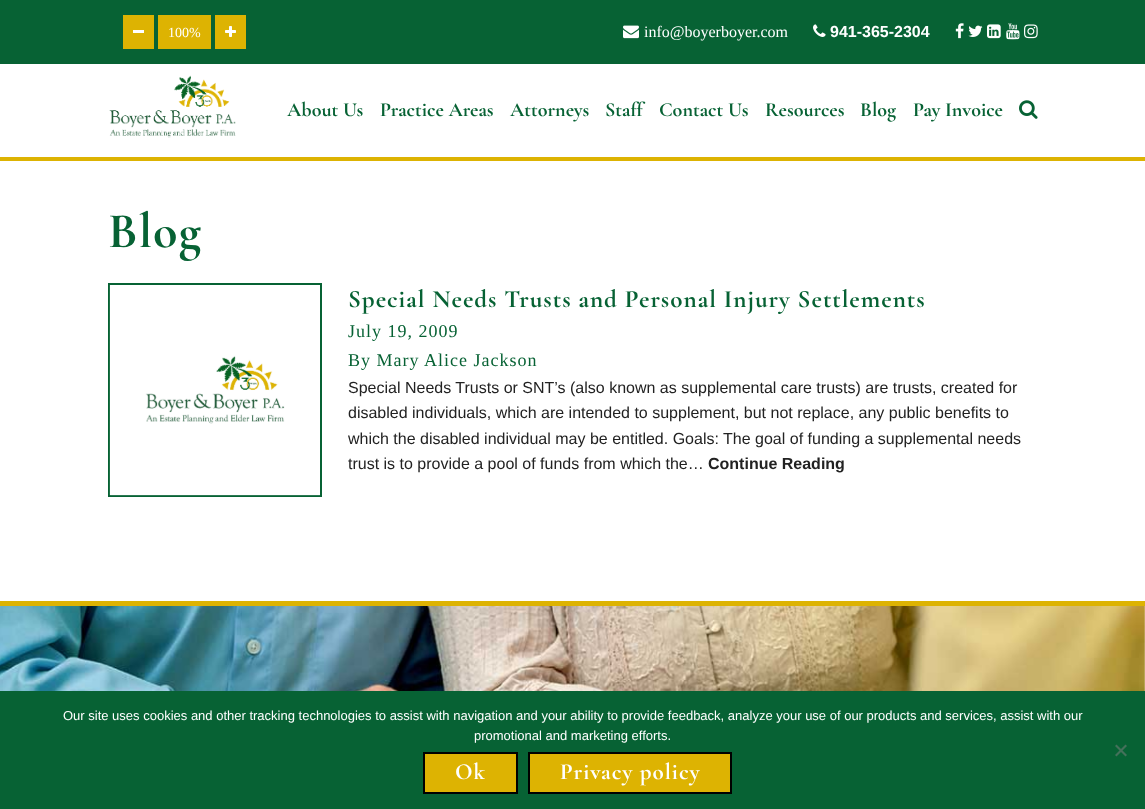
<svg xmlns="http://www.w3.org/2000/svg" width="1145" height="809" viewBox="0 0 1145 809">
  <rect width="100%" height="100%" fill="rgb(255,255,255)"/>
  <rect x="0" y="0" width="1145" height="64" fill="rgb(7,98,52)"/>
  <rect x="123" y="15" width="31" height="34" fill="rgb(221,179,2)"/>
  <rect x="133" y="30" width="11" height="3" fill="rgb(255,255,255)"/>
  <rect x="158" y="15" width="53" height="34" fill="rgb(221,179,2)"/>
  <text x="168" y="37" font-family="Liberation Serif" font-size="14" fill="rgb(255,255,255)">100%</text>
  <rect x="215" y="15" width="31" height="34" fill="rgb(221,179,2)"/>
  <image x="225" y="26" width="11" height="11" href="pic1.png"/>
  <image x="623" y="25" width="16" height="14" href="pic2.png"/>
  <text x="644" y="37" font-family="Liberation Serif" font-size="16" fill="rgb(255,255,255)">info@boyerboyer.com</text>
  <image x="813" y="24" width="13" height="13" href="pic3.png"/>
  <text x="830" y="37" font-family="Liberation Sans" font-size="16" font-weight="bold" fill="rgb(255,255,255)">941-365-2304</text>
  <image x="955" y="23" width="9" height="16" href="pic4.png"/>
  <image x="968" y="25" width="15" height="12" href="pic5.png"/>
  <image x="987" y="24" width="14" height="15" href="pic6.png"/>
  <image x="1006" y="23" width="14" height="17" href="pic7.png"/>
  <image x="1024" y="24" width="14" height="15" href="pic8.png"/>
  <rect x="0" y="157" width="1145" height="4" fill="rgb(221,179,2)"/>
  <image x="109" y="75" width="127" height="63" href="pic9.png"/>
  <g font-family="Cormorant Garamond" font-size="20" font-weight="bold" fill="rgb(7,98,52)">
    <text x="287" y="116">About Us</text>
    <text x="380" y="116">Practice Areas</text>
    <text x="510" y="116">Attorneys</text>
    <text x="605" y="116">Staff</text>
    <text x="659" y="116">Contact Us</text>
    <text x="765" y="116">Resources</text>
    <text x="860" y="116">Blog</text>
    <text x="913" y="116">Pay Invoice</text>
  </g>
  <image x="1019" y="100" width="19" height="19" href="pic10.png"/>
  <rect x="0" y="601" width="1145" height="5" fill="rgb(221,179,2)"/>
  <text x="108" y="247" font-family="Cormorant Garamond" font-size="50" font-weight="bold" letter-spacing="1" fill="rgb(7,98,52)">Blog</text>
  <rect x="109" y="284" width="212" height="212" fill="none" stroke="rgb(7,98,52)" stroke-width="2"/>
  <image x="109" y="285" width="211" height="211" href="pic11.png"/>
  <text x="348" y="307" font-family="Cormorant Garamond" font-size="25" font-weight="bold" letter-spacing="1" fill="rgb(7,98,52)">Special Needs Trusts and Personal Injury Settlements</text>
  <g font-family="Liberation Serif" font-size="18" letter-spacing="1" fill="rgb(7,98,52)">
    <text>
      <tspan x="348" y="337">July 19, 2009</tspan>
      <tspan x="348" y="366">By Mary Alice Jackson</tspan>
    </text>
  </g>
  <g font-family="Liberation Sans" font-size="16" fill="rgb(34,34,34)">
    <text>
      <tspan x="348" y="393">Special Needs Trusts or SNT’s (also known as supplemental care trusts) are trusts, created for</tspan>
      <tspan x="348" y="418">disabled individuals, which are intended to supplement, but not replace, any public benefits to</tspan>
      <tspan x="348" y="444">which the disabled individual may be entitled. Goals: The goal of funding a supplemental needs</tspan>
      <tspan x="348" y="469">trust is to provide a pool of funds from which the…</tspan>
    </text>
  </g>
  <text x="708" y="469" font-family="Liberation Sans" font-size="16" font-weight="bold" fill="rgb(34,34,34)">Continue Reading</text>
  <image x="0" y="606" width="1145" height="85" href="pic12.png"/>
  <rect x="0" y="691" width="1145" height="118" fill="rgb(7,98,52)"/>
  <g font-family="Liberation Sans" font-size="13" fill="rgb(255,255,255)">
    <text x="63" y="720">Our site uses cookies and other tracking technologies to assist with navigation and your ability to provide feedback, analyze your use of our products and services, assist with our</text>
    <text x="474" y="740">promotional and marketing efforts.</text>
  </g>
  <path d="M1125.5 744.5L1127 746L1116.5 756.5L1115 755Z" fill="rgb(68,113,90)"/>
  <path d="M1115 746L1116.5 744.5L1127 755L1125.5 756.5Z" fill="rgb(68,113,90)"/>
  <rect x="424" y="753" width="93" height="40" fill="rgb(221,179,2)" stroke="rgb(0,0,0)" stroke-width="2"/>
  <text x="455" y="779" font-family="Cormorant Garamond" font-size="23" font-weight="bold" letter-spacing="1" fill="rgb(255,255,255)">Ok</text>
  <rect x="529" y="753" width="202" height="40" fill="rgb(221,179,2)" stroke="rgb(0,0,0)" stroke-width="2"/>
  <text x="560" y="779" font-family="Cormorant Garamond" font-size="23" font-weight="bold" letter-spacing="1" fill="rgb(255,255,255)">Privacy policy</text>
</svg>
